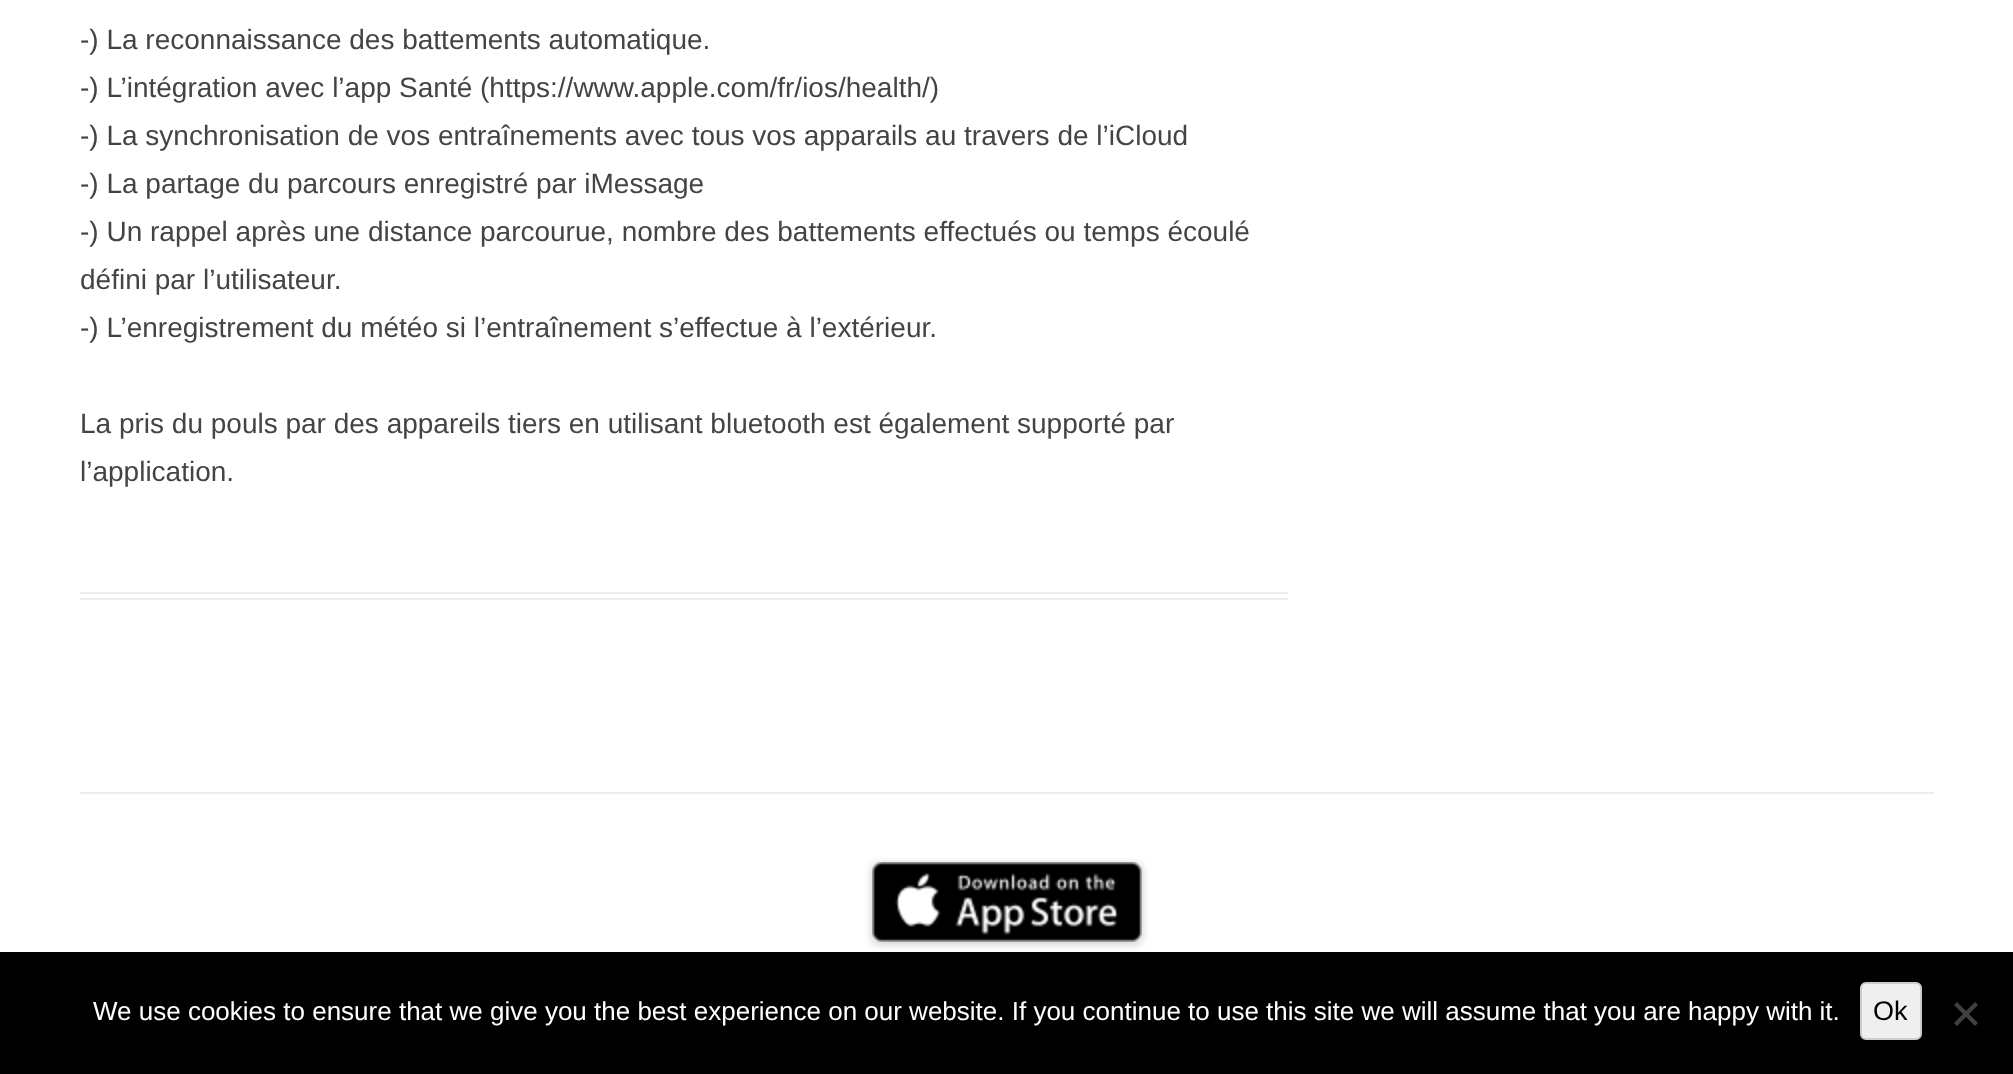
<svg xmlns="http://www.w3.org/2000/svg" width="2013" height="1074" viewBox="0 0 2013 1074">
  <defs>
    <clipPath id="clip1"><path d="M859 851H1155V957H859ZM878 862H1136C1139.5 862 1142 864.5 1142 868V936C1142 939.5 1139.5 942 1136 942H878C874.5 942 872 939.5 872 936V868C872 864.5 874.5 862 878 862Z" clip-rule="evenodd"/></clipPath>
  </defs>
  <rect width="100%" height="100%" fill="rgb(255,255,255)"/>
  <rect x="80" y="592" width="1208" height="2" fill="rgb(237,237,237)"/>
  <rect x="80" y="598" width="1208" height="2" fill="rgb(237,237,237)"/>
  <g font-family="Liberation Sans" font-size="28" fill="rgb(68,68,68)">
    <text>
      <tspan x="80" y="49">-) La reconnaissance des battements automatique.</tspan>
      <tspan x="80" y="97">-) L’intégration avec l’app Santé (https://www.apple.com/fr/ios/health/)</tspan>
      <tspan x="80" y="145">-) La synchronisation de vos entraînements avec tous vos apparails au travers de l’iCloud</tspan>
      <tspan x="80" y="193">-) La partage du parcours enregistré par iMessage</tspan>
      <tspan x="80" y="241">-) Un rappel après une distance parcourue, nombre des battements effectués ou temps écoulé</tspan>
      <tspan x="80" y="289">défini par l’utilisateur.</tspan>
      <tspan x="80" y="337">-) L’enregistrement du météo si l’entraînement s’effectue à l’extérieur.</tspan>
    </text>
    <text>
      <tspan x="80" y="433">La pris du pouls par des appareils tiers en utilisant bluetooth est également supporté par</tspan>
      <tspan x="80" y="481">l’application.</tspan>
    </text>
  </g>
  <rect x="80" y="792" width="1854" height="2" fill="rgb(237,237,237)"/>
  <g clip-path="url(#clip1)">
    <rect x="872" y="864" width="270" height="80" rx="6" fill="rgba(0,0,0,0.2)" filter="blur(4px)"/>
  </g>
  <image x="872" y="862" width="270" height="80" href="pic1.png"/>
  <rect x="0" y="952" width="2013" height="122" fill="rgb(0,0,0)"/>
  <text x="93" y="1020" font-family="Liberation Sans" font-size="26" fill="rgb(255,255,255)">We use cookies to ensure that we give you the best experience on our website. If you continue to use this site we will assume that you are happy with it.</text>
  <rect x="1861" y="983" width="60" height="56" rx="5" fill="rgb(239,239,239)" stroke="rgb(204,204,204)" stroke-width="2"/>
  <text x="1873" y="1020" font-family="Liberation Sans" font-size="27" fill="rgb(0,0,0)">Ok</text>
  <path d="M1975 1002L1978 1005L1957 1026L1954 1023Z" fill="rgb(64,64,64)"/>
  <path d="M1954 1005L1957 1002L1978 1023L1975 1026Z" fill="rgb(64,64,64)"/>
</svg>
